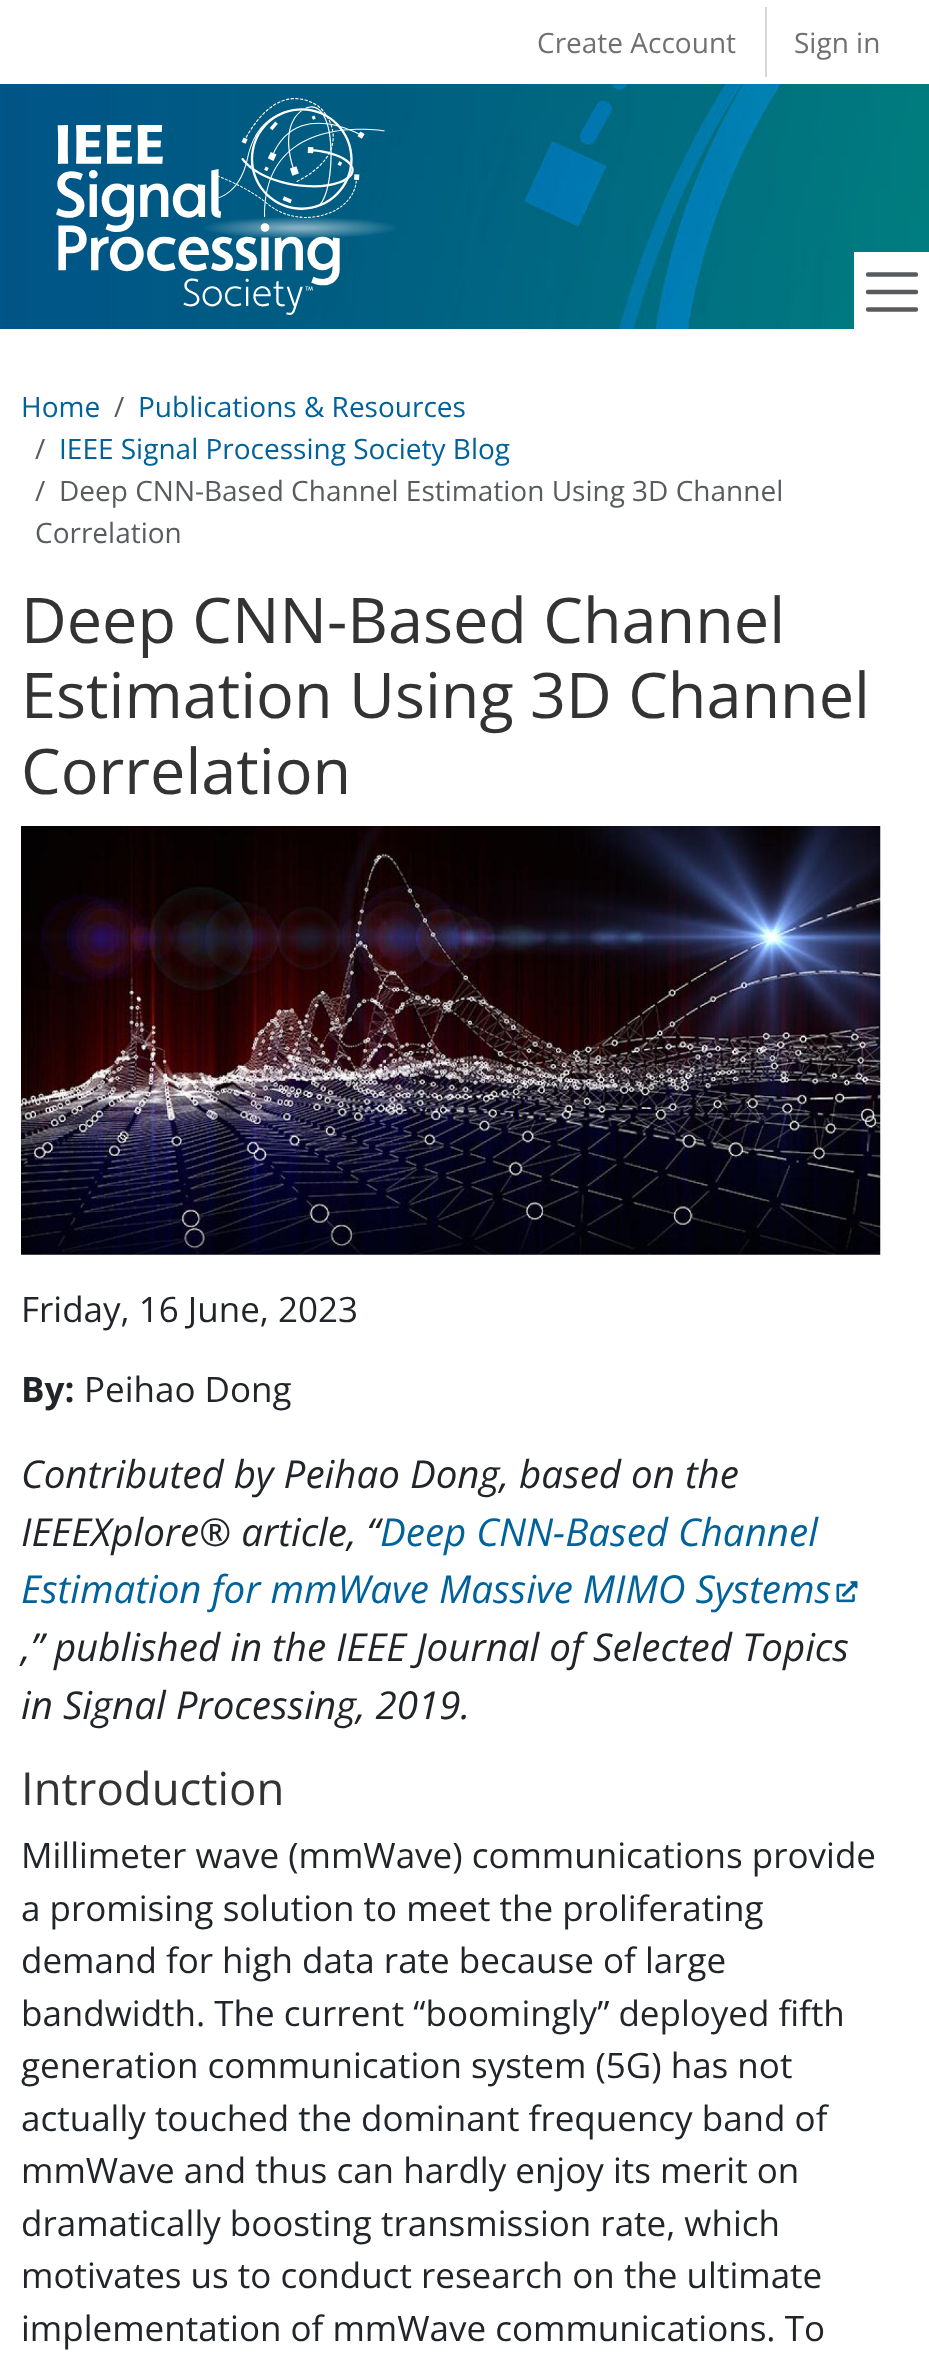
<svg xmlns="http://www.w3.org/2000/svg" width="929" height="2366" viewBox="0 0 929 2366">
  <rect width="100%" height="100%" fill="rgb(255,255,255)"/>
  <rect x="765" y="7" width="2" height="70" fill="rgb(215,215,215)"/>
  <g font-family="Open Sans" font-size="28" fill="rgb(112,112,112)">
    <text x="537" y="53">Create Account</text>
    <text x="794" y="53">Sign in</text>
  </g>
  <image x="0" y="84" width="929" height="245" href="pic1.png"/>
  <image x="56" y="98" width="340" height="217" href="pic2.png"/>
  <rect x="854" y="252" width="75" height="77" fill="rgb(255,255,255)"/>
  <path d="M868 274.5H916M868 292H916M868 309.5H916" fill="none" stroke="rgb(89,92,95)" stroke-width="4.4" stroke-linecap="round"/>
  <text x="21" y="417" font-family="Open Sans" font-size="28" fill="rgb(0,98,155)">Home</text>
  <text x="114" y="417" font-family="Open Sans" font-size="28" fill="rgb(89,92,95)">/</text>
  <text x="138" y="417" font-family="Open Sans" font-size="28" fill="rgb(0,98,155)">Publications &amp; Resources</text>
  <text x="35" y="459" font-family="Open Sans" font-size="28" fill="rgb(89,92,95)">/</text>
  <text x="59" y="459" font-family="Open Sans" font-size="28" fill="rgb(0,98,155)">IEEE Signal Processing Society Blog</text>
  <g font-family="Open Sans" font-size="28" fill="rgb(89,92,95)">
    <text x="35" y="501">/</text>
    <text x="59" y="501">Deep CNN-Based Channel Estimation Using 3D Channel</text>
    <text x="35" y="543">Correlation</text>
  </g>
  <g font-family="Open Sans" font-size="63" fill="rgb(51,51,51)">
    <text>
      <tspan x="21" y="643">Deep CNN-Based Channel</tspan>
      <tspan x="21" y="718">Estimation Using 3D Channel</tspan>
      <tspan x="21" y="794">Correlation</tspan>
    </text>
  </g>
  <image x="21" y="826" width="860" height="429" href="pic3.png"/>
  <text x="21" y="1322" font-family="Open Sans" font-size="35" fill="rgb(33,37,41)">Friday, 16 June, 2023</text>
  <text x="21" y="1402" font-family="Open Sans" font-size="35" font-weight="bold" fill="rgb(33,37,41)">By:</text>
  <text x="84" y="1402" font-family="Open Sans" font-size="35" fill="rgb(33,37,41)">Peihao Dong</text>
  <g font-family="Open Sans" font-size="38.5" font-style="italic" fill="rgb(33,37,41)">
    <text>
      <tspan x="21" y="1488">Contributed by Peihao Dong, based on the</tspan>
      <tspan x="21" y="1546">IEEEXplore® article, “</tspan>
    </text>
  </g>
  <g font-family="Open Sans" font-size="38.5" font-style="italic" fill="rgb(0,98,155)">
    <text x="380" y="1546">Deep CNN-Based Channel</text>
    <text x="21" y="1603">Estimation for mmWave Massive MIMO Systems</text>
  </g>
  <image x="836" y="1581" width="22" height="22" href="pic4.png"/>
  <g font-family="Open Sans" font-size="38.5" font-style="italic" fill="rgb(33,37,41)">
    <text>
      <tspan x="21" y="1661">,” published in the IEEE Journal of Selected Topics</tspan>
      <tspan x="21" y="1719">in Signal Processing, 2019.</tspan>
    </text>
  </g>
  <text x="21" y="1805" font-family="Open Sans" font-size="45.5" fill="rgb(51,51,51)">Introduction</text>
  <g font-family="Open Sans" font-size="35" fill="rgb(33,37,41)">
    <text>
      <tspan x="21" y="1868">Millimeter wave (mmWave) communications provide</tspan>
      <tspan x="21" y="1921">a promising solution to meet the proliferating</tspan>
      <tspan x="21" y="1973">demand for high data rate because of large</tspan>
      <tspan x="21" y="2026">bandwidth. The current “boomingly” deployed fifth</tspan>
      <tspan x="21" y="2078">generation communication system (5G) has not</tspan>
      <tspan x="21" y="2131">actually touched the dominant frequency band of</tspan>
      <tspan x="21" y="2183">mmWave and thus can hardly enjoy its merit on</tspan>
      <tspan x="21" y="2236">dramatically boosting transmission rate, which</tspan>
      <tspan x="21" y="2288">motivates us to conduct research on the ultimate</tspan>
      <tspan x="21" y="2341">implementation of mmWave communications. To</tspan>
    </text>
  </g>
</svg>
